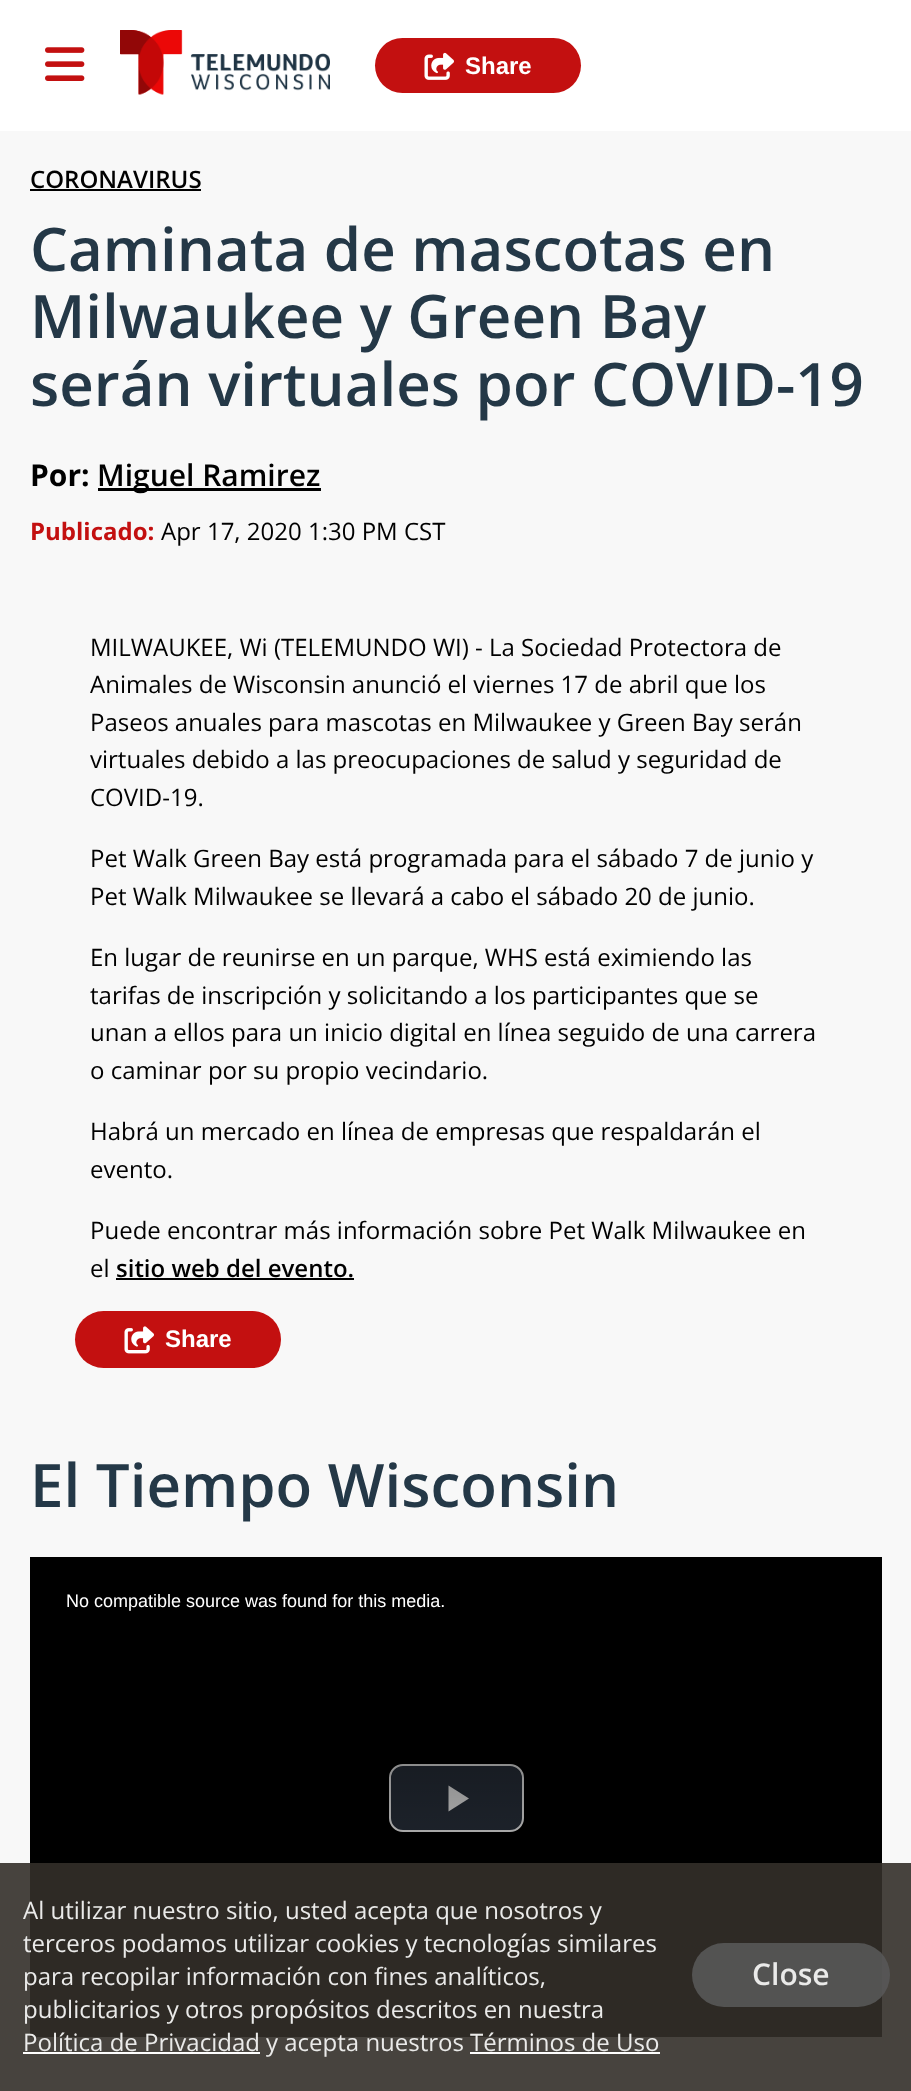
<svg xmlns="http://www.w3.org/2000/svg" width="911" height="2091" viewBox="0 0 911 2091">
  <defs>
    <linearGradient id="g1" gradientUnits="userSpaceOnUse" x1="456" y1="1557" x2="456" y2="2037"><stop offset="0" stop-color="rgb(0,0,0)" stop-opacity="0.8"/><stop offset="1" stop-color="rgb(0,0,0)" stop-opacity="0"/></linearGradient>
  </defs>
  <rect width="100%" height="100%" fill="rgb(248,248,248)"/>
  <rect x="0" y="0" width="911" height="131" fill="rgb(255,255,255)"/>
  <image x="45" y="47" width="40" height="34" href="pic1.png"/>
  <image x="120" y="30" width="210" height="65" href="pic2.png"/>
  <rect x="375" y="38" width="206" height="55" rx="27.5" fill="rgb(195,16,16)"/>
  <image x="424" y="52" width="30" height="28" href="pic3.png"/>
  <text x="465" y="74" font-family="Liberation Sans" font-size="24" font-weight="bold" fill="rgb(255,255,255)">Share</text>
  <text x="30" y="188" font-family="Open Sans" font-size="24" font-weight="600" fill="rgb(0,0,0)">CORONAVIRUS</text>
  <rect x="30" y="189" width="171" height="2" fill="rgb(0,0,0)"/>
  <g font-family="Open Sans" font-size="60" font-weight="600" fill="rgb(36,56,71)">
    <text>
      <tspan x="30" y="271">Caminata de mascotas en</tspan>
      <tspan x="30" y="338">Milwaukee y Green Bay</tspan>
      <tspan x="30" y="406">serán virtuales por COVID-19</tspan>
    </text>
  </g>
  <text x="30" y="486" font-family="Open Sans" font-size="30" font-weight="bold" fill="rgb(0,0,0)">Por:</text>
  <rect x="98" y="488" width="223" height="3" fill="rgb(0,0,0)"/>
  <text x="97" y="486" font-family="Open Sans" font-size="30" font-weight="600" fill="rgb(0,0,0)">Miguel Ramirez</text>
  <text x="30" y="540" font-family="Open Sans" font-size="24" font-weight="bold" fill="rgb(195,16,16)">Publicado:</text>
  <g font-family="Open Sans" font-size="24" fill="rgb(0,0,0)">
    <text x="161" y="540">Apr 17, 2020 1:30 PM CST</text>
    <text>
      <tspan x="90" y="656">MILWAUKEE, Wi (TELEMUNDO WI) - La Sociedad Protectora de</tspan>
      <tspan x="90" y="693">Animales de Wisconsin anunció el viernes 17 de abril que los</tspan>
      <tspan x="90" y="731">Paseos anuales para mascotas en Milwaukee y Green Bay serán</tspan>
      <tspan x="90" y="768">virtuales debido a las preocupaciones de salud y seguridad de</tspan>
      <tspan x="90" y="806">COVID-19.</tspan>
    </text>
    <text>
      <tspan x="90" y="867">Pet Walk Green Bay está programada para el sábado 7 de junio y</tspan>
      <tspan x="90" y="905">Pet Walk Milwaukee se llevará a cabo el sábado 20 de junio.</tspan>
    </text>
    <text>
      <tspan x="90" y="966">En lugar de reunirse en un parque, WHS está eximiendo las</tspan>
      <tspan x="90" y="1004">tarifas de inscripción y solicitando a los participantes que se</tspan>
      <tspan x="90" y="1041">unan a ellos para un inicio digital en línea seguido de una carrera</tspan>
      <tspan x="90" y="1079">o caminar por su propio vecindario.</tspan>
    </text>
    <text>
      <tspan x="90" y="1140">Habrá un mercado en línea de empresas que respaldarán el</tspan>
      <tspan x="90" y="1178">evento.</tspan>
    </text>
    <text>
      <tspan x="90" y="1239">Puede encontrar más información sobre Pet Walk Milwaukee en</tspan>
      <tspan x="90" y="1277">el</tspan>
    </text>
  </g>
  <text x="116" y="1277" font-family="Open Sans" font-size="24" font-weight="600" fill="rgb(0,0,0)">sitio web del evento.</text>
  <rect x="116" y="1278" width="238" height="2" fill="rgb(0,0,0)"/>
  <rect x="75" y="1311" width="206" height="57" rx="28.5" fill="rgb(195,16,16)"/>
  <image x="124" y="1326" width="30" height="28" href="pic4.png"/>
  <text x="165" y="1347" font-family="Liberation Sans" font-size="24" font-weight="bold" fill="rgb(255,255,255)">Share</text>
  <text x="30" y="1507" font-family="Open Sans" font-size="60" font-weight="600" fill="rgb(36,56,71)">El Tiempo Wisconsin</text>
  <rect x="30" y="1557" width="852" height="480" fill="rgb(0,0,0)"/>
  <rect x="390" y="1765" width="133" height="66" rx="13" fill="rgb(43,51,63)" stroke="rgb(255,255,255)" stroke-width="2"/>
  <path d="M448.5 1785.5V1811.5L469 1798.5Z" fill="rgb(255,255,255)"/>
  <rect x="389" y="1764" width="135" height="68" fill="url(#g1)"/>
  <text x="66" y="1607" font-family="Liberation Sans" font-size="18" fill="rgb(255,255,255)">No compatible source was found for this media.</text>
  <rect x="0" y="1863" width="911" height="228" fill="rgba(51,47,41,0.9)"/>
  <g font-family="Open Sans" font-size="24" fill="rgb(234,234,233)">
    <text>
      <tspan x="23" y="1919">Al utilizar nuestro sitio, usted acepta que nosotros y</tspan>
      <tspan x="23" y="1952">terceros podamos utilizar cookies y tecnologías similares</tspan>
      <tspan x="23" y="1985">para recopilar información con fines analíticos,</tspan>
      <tspan x="23" y="2018">publicitarios y otros propósitos descritos en nuestra</tspan>
      <tspan x="23" y="2051">Política de Privacidad</tspan>
    </text>
  </g>
  <rect x="23" y="2052" width="237" height="2" fill="rgb(254,254,254)"/>
  <g font-family="Open Sans" font-size="24" fill="rgb(234,234,233)">
    <text x="266" y="2051">y acepta nuestros</text>
    <text x="470" y="2051">Términos de Uso</text>
  </g>
  <rect x="470" y="2052" width="190" height="2" fill="rgb(254,254,254)"/>
  <rect x="692" y="1943" width="198" height="64" rx="32" fill="rgba(88,88,88,0.9)"/>
  <text x="752" y="1985" font-family="Open Sans" font-size="30" font-weight="600" fill="rgb(234,234,233)">Close</text>
</svg>
